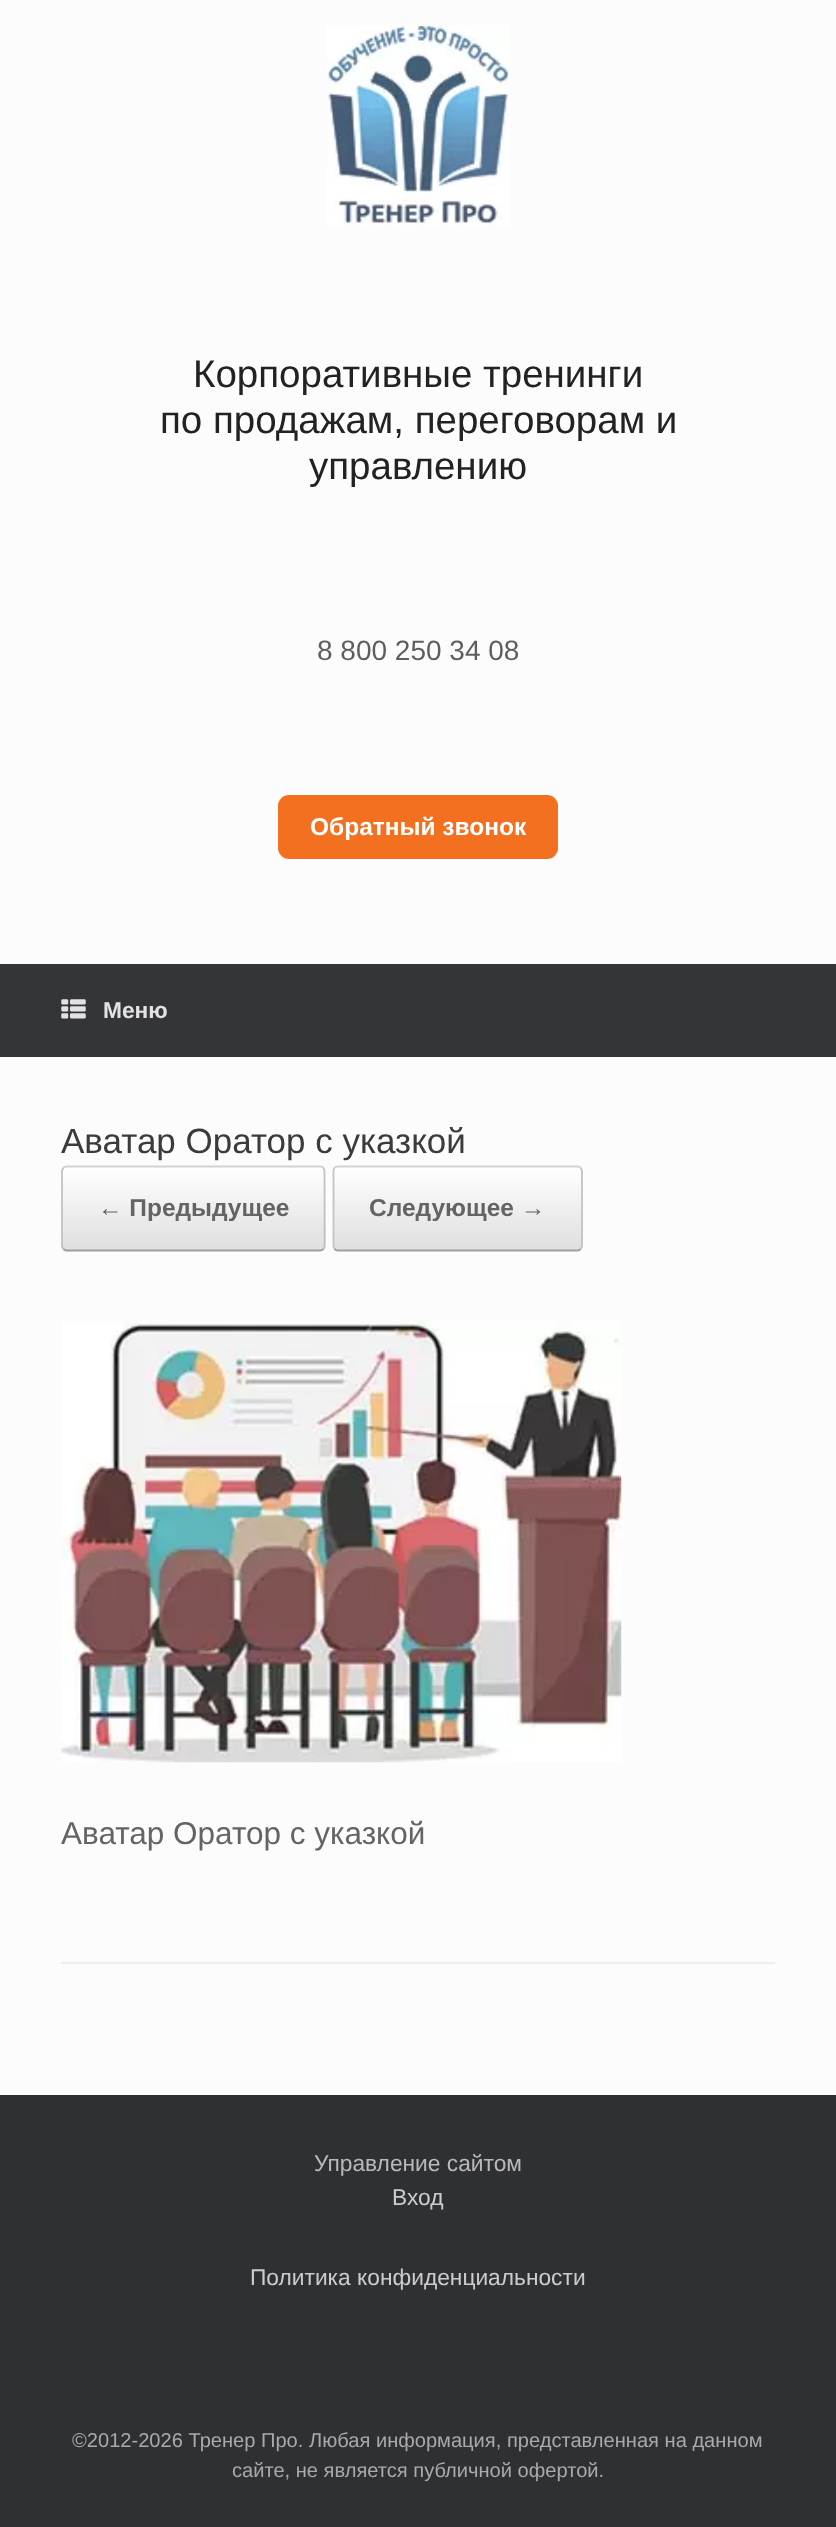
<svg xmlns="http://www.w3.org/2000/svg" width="836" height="2527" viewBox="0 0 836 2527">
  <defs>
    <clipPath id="clip1"><rect x="61" y="1166" width="265" height="85" rx="5"/></clipPath>
    <linearGradient id="g1" gradientUnits="userSpaceOnUse" x1="63" y1="1250" x2="63" y2="1167"><stop offset="0" stop-color="rgb(223,223,223)"/><stop offset="1" stop-color="rgb(255,255,255)"/></linearGradient>
    <clipPath id="clip2"><rect x="333" y="1166" width="250" height="85" rx="5"/></clipPath>
    <linearGradient id="g2" gradientUnits="userSpaceOnUse" x1="334" y1="1250" x2="334" y2="1167"><stop offset="0" stop-color="rgb(223,223,223)"/><stop offset="1" stop-color="rgb(255,255,255)"/></linearGradient>
  </defs>
  <rect width="100%" height="100%" fill="rgb(47,48,51)"/>
  <rect x="0" y="0" width="836" height="964" fill="rgb(252,252,252)"/>
  <image x="327" y="25" width="183" height="202" href="pic1.png"/>
  <g font-family="Liberation Sans" font-size="38.5" fill="rgb(34,34,34)">
    <text x="193" y="387">Корпоративные тренинги</text>
    <text x="160" y="433">по продажам, переговорам и</text>
    <text x="309" y="479">управлению</text>
  </g>
  <text x="317" y="660" font-family="Liberation Sans" font-size="28" fill="rgb(94,94,94)">8 800 250 34 08</text>
  <rect x="278" y="795" width="280" height="64" rx="11" fill="rgb(243,112,33)"/>
  <text x="310" y="835" font-family="Liberation Sans" font-size="24.5" font-weight="bold" fill="rgb(255,255,255)">Обратный звонок</text>
  <rect x="0" y="964" width="836" height="93" fill="rgb(52,53,56)"/>
  <image x="61" y="999" width="25" height="20" href="pic2.png"/>
  <text x="103" y="1018" font-family="Liberation Sans" font-size="22.75" font-weight="bold" fill="rgb(226,226,226)">Меню</text>
  <rect x="0" y="1057" width="836" height="1038" fill="rgb(252,252,252)"/>
  <rect x="61" y="1962" width="714" height="2" fill="rgb(238,238,238)"/>
  <text x="61" y="1153" font-family="Liberation Sans" font-size="35" fill="rgb(59,59,59)">Аватар Оратор с указкой</text>
  <g clip-path="url(#clip1)">
    <rect x="61" y="1167" width="265" height="83" fill="url(#g1)"/>
  </g>
  <path d="M63.5 1167.5C64 1167 65.5 1166.5 66.5 1166.5H320C321.5 1166.5 322.5 1167 323.5 1167.5" fill="none" stroke="rgb(210,210,210)" stroke-width="1.8"/>
  <path d="M323.5 1167.5L324.5 1170.5V1246.5L323.5 1249" fill="none" stroke="rgb(195,195,195)" stroke-width="1.8"/>
  <path d="M323.5 1249C322.5 1250 321.5 1250.5 320 1250.5H66.5C65.5 1250.5 64 1250 63.5 1249" fill="none" stroke="rgb(159,159,159)" stroke-width="1.8"/>
  <path d="M63.5 1249L62 1246.5V1170.5L63.5 1167.5" fill="none" stroke="rgb(195,195,195)" stroke-width="1.8"/>
  <text x="98" y="1216" font-family="Liberation Sans" font-size="24.5" font-weight="bold" fill="rgb(100,100,100)">← Предыдущее</text>
  <g clip-path="url(#clip2)">
    <rect x="333" y="1167" width="250" height="83" fill="url(#g2)"/>
  </g>
  <path d="M334.5 1167.5C335.5 1167 336.5 1166.5 338 1166.5H577.5C578.5 1166.5 580 1167 580.5 1167.5" fill="none" stroke="rgb(210,210,210)" stroke-width="1.8"/>
  <path d="M580.5 1167.5L582 1170.5V1246.5L580.5 1249" fill="none" stroke="rgb(195,195,195)" stroke-width="1.8"/>
  <path d="M580.5 1249C580 1250 578.5 1250.5 577.5 1250.5H338C336.5 1250.5 335.5 1250 334.5 1249" fill="none" stroke="rgb(159,159,159)" stroke-width="1.8"/>
  <path d="M334.5 1249L333.5 1246.5V1170.5L334.5 1167.5" fill="none" stroke="rgb(195,195,195)" stroke-width="1.8"/>
  <text x="369" y="1216" font-family="Liberation Sans" font-size="24.5" font-weight="bold" fill="rgb(100,100,100)">Следующее →</text>
  <image x="61" y="1321" width="561" height="442" href="pic3.png"/>
  <text x="61" y="1844" font-family="Liberation Sans" font-size="31.5" fill="rgb(100,100,100)">Аватар Оратор с указкой</text>
  <text x="314" y="2171" font-family="Liberation Sans" font-size="22.75" fill="rgb(185,185,185)">Управление сайтом</text>
  <g font-family="Liberation Sans" font-size="22.75" fill="rgb(204,204,204)">
    <text x="392" y="2205">Вход</text>
    <text x="250" y="2285">Политика конфиденциальности</text>
  </g>
  <g font-family="Liberation Sans" font-size="20.1" fill="rgb(170,170,170)">
    <text x="72" y="2447">©2012-2026 Тренер Про. Любая информация, представленная на данном</text>
    <text x="232" y="2477">сайте, не является публичной офертой.</text>
  </g>
</svg>
